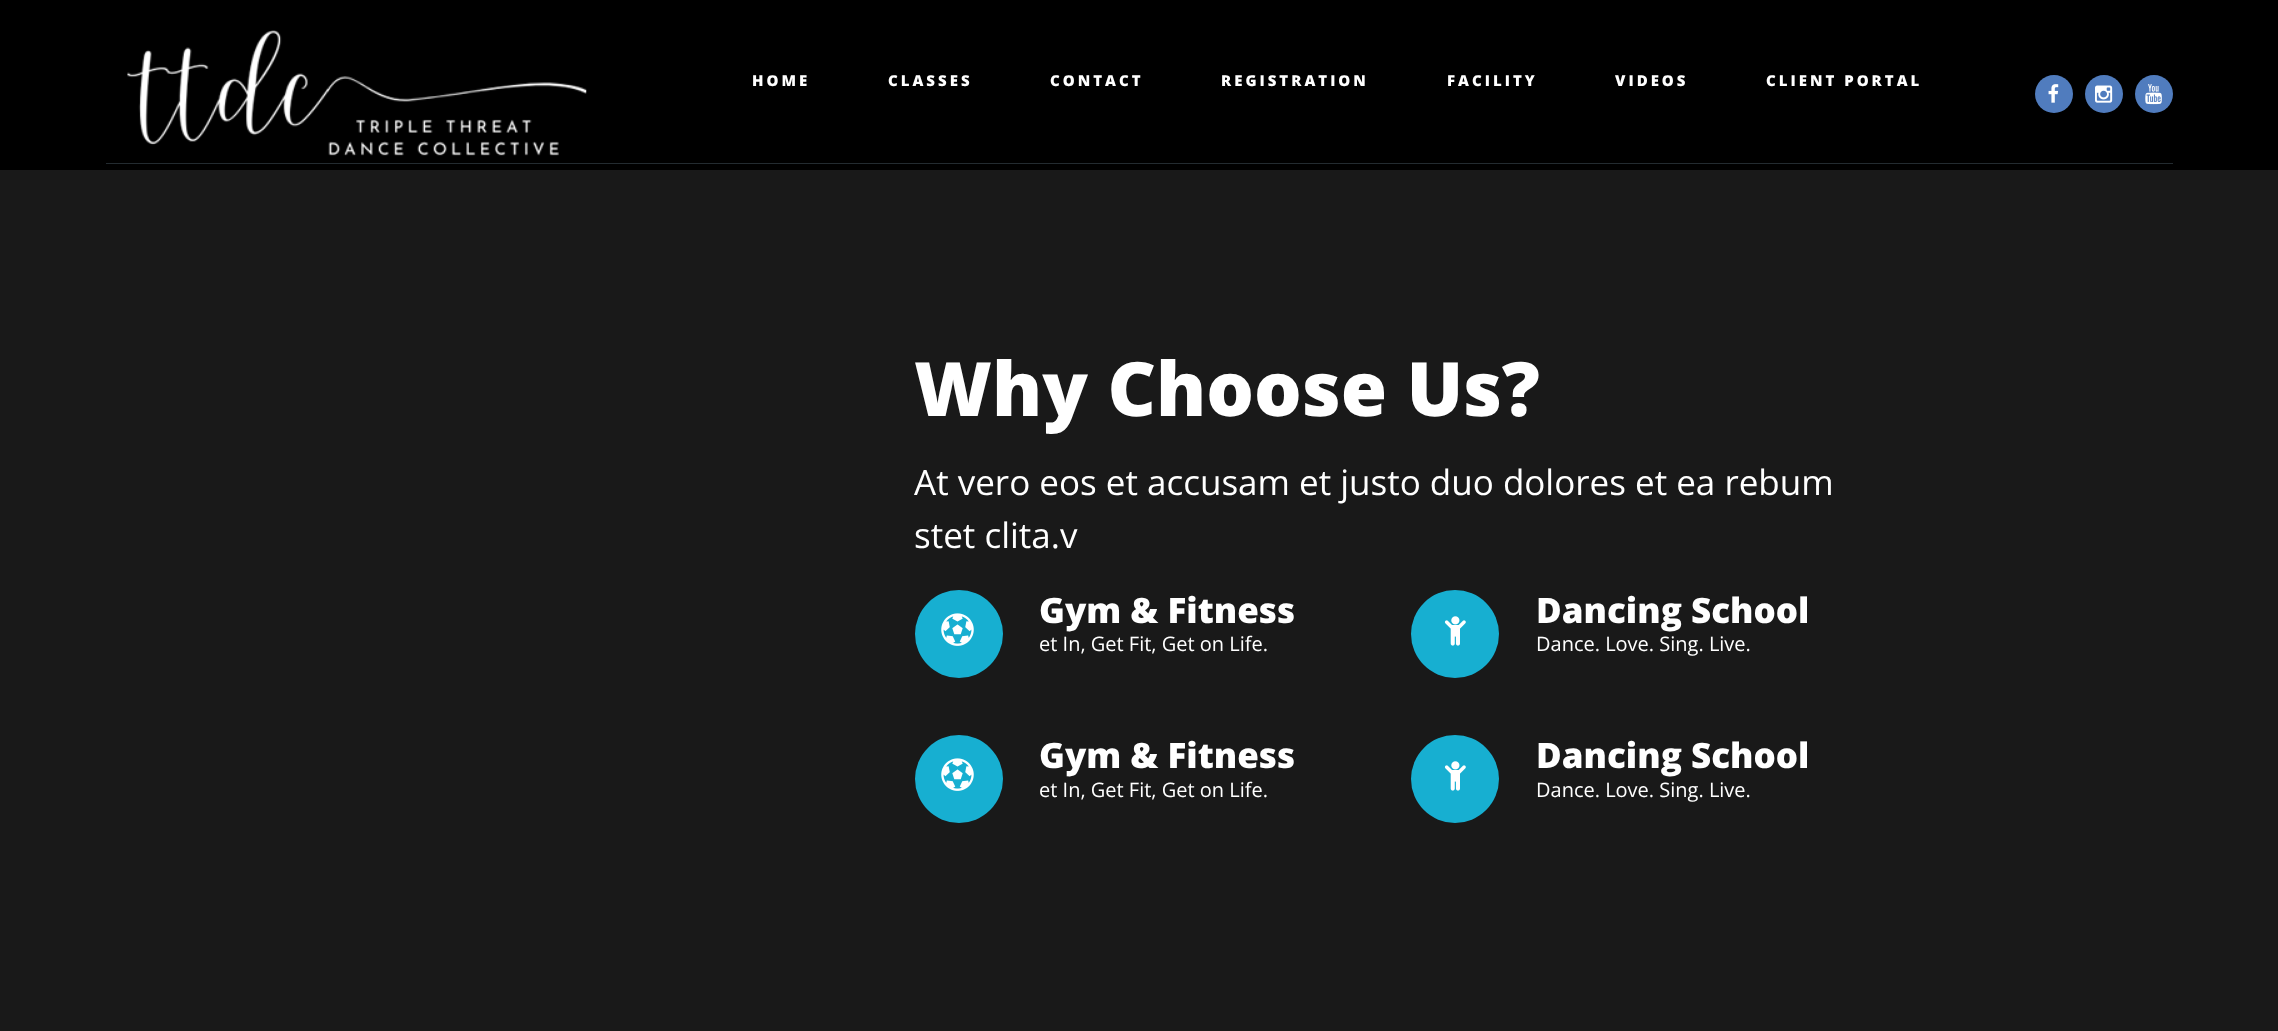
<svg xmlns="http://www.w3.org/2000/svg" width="2278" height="1031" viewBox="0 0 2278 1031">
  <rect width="100%" height="100%" fill="rgb(25,25,25)"/>
  <rect x="0" y="0" width="2278" height="170" fill="rgb(0,0,0)"/>
  <rect x="106" y="163" width="2067" height="1" fill="rgb(35,43,48)"/>
  <image x="127" y="30" width="460" height="126" href="pic1.png"/>
  <g font-family="Open Sans" font-size="15" font-weight="800" letter-spacing="3" fill="rgb(255,255,255)">
    <text x="752" y="86">HOME</text>
    <text x="888" y="86">CLASSES</text>
    <text x="1050" y="86">CONTACT</text>
    <text x="1221" y="86">REGISTRATION</text>
    <text x="1447" y="86">FACILITY</text>
    <text x="1615" y="86">VIDEOS</text>
    <text x="1766" y="86">CLIENT PORTAL</text>
  </g>
  <circle cx="2054" cy="94" r="19" fill="rgb(80,124,190)"/>
  <image x="2048" y="84" width="11" height="19" href="pic2.png"/>
  <circle cx="2104" cy="94" r="19" fill="rgb(80,124,190)"/>
  <image x="2095" y="85" width="18" height="18" href="pic3.png"/>
  <circle cx="2154" cy="94" r="19" fill="rgb(80,124,190)"/>
  <image x="2145" y="84" width="17" height="21" href="pic4.png"/>
  <text x="914" y="416" font-family="Open Sans" font-size="75" font-weight="800" fill="rgb(255,255,255)">Why Choose Us?</text>
  <g font-family="Open Sans" font-size="35" fill="rgb(255,255,255)">
    <text>
      <tspan x="914" y="495">At vero eos et accusam et justo duo dolores et ea rebum</tspan>
      <tspan x="914" y="548">stet clita.v</tspan>
    </text>
  </g>
  <circle cx="959" cy="634" r="44" fill="rgb(23,175,209)"/>
  <image x="941" y="613" width="33" height="33" href="pic5.png"/>
  <text x="1039" y="623" font-family="Open Sans" font-size="35" font-weight="800" fill="rgb(255,255,255)">Gym &amp; Fitness</text>
  <text x="1039" y="651" font-family="Open Sans" font-size="20" fill="rgb(255,255,255)">et In, Get Fit, Get on Life.</text>
  <circle cx="1455" cy="634" r="44" fill="rgb(23,175,209)"/>
  <image x="1444" y="616" width="22" height="30" href="pic6.png"/>
  <text x="1536" y="623" font-family="Open Sans" font-size="35" font-weight="800" fill="rgb(255,255,255)">Dancing School</text>
  <text x="1536" y="651" font-family="Open Sans" font-size="20" fill="rgb(255,255,255)">Dance. Love. Sing. Live.</text>
  <circle cx="959" cy="779" r="44" fill="rgb(23,175,209)"/>
  <image x="941" y="758" width="33" height="33" href="pic5.png"/>
  <text x="1039" y="768" font-family="Open Sans" font-size="35" font-weight="800" fill="rgb(255,255,255)">Gym &amp; Fitness</text>
  <text x="1039" y="797" font-family="Open Sans" font-size="20" fill="rgb(255,255,255)">et In, Get Fit, Get on Life.</text>
  <circle cx="1455" cy="779" r="44" fill="rgb(23,175,209)"/>
  <image x="1444" y="761" width="22" height="30" href="pic6.png"/>
  <text x="1536" y="768" font-family="Open Sans" font-size="35" font-weight="800" fill="rgb(255,255,255)">Dancing School</text>
  <text x="1536" y="797" font-family="Open Sans" font-size="20" fill="rgb(255,255,255)">Dance. Love. Sing. Live.</text>
</svg>
